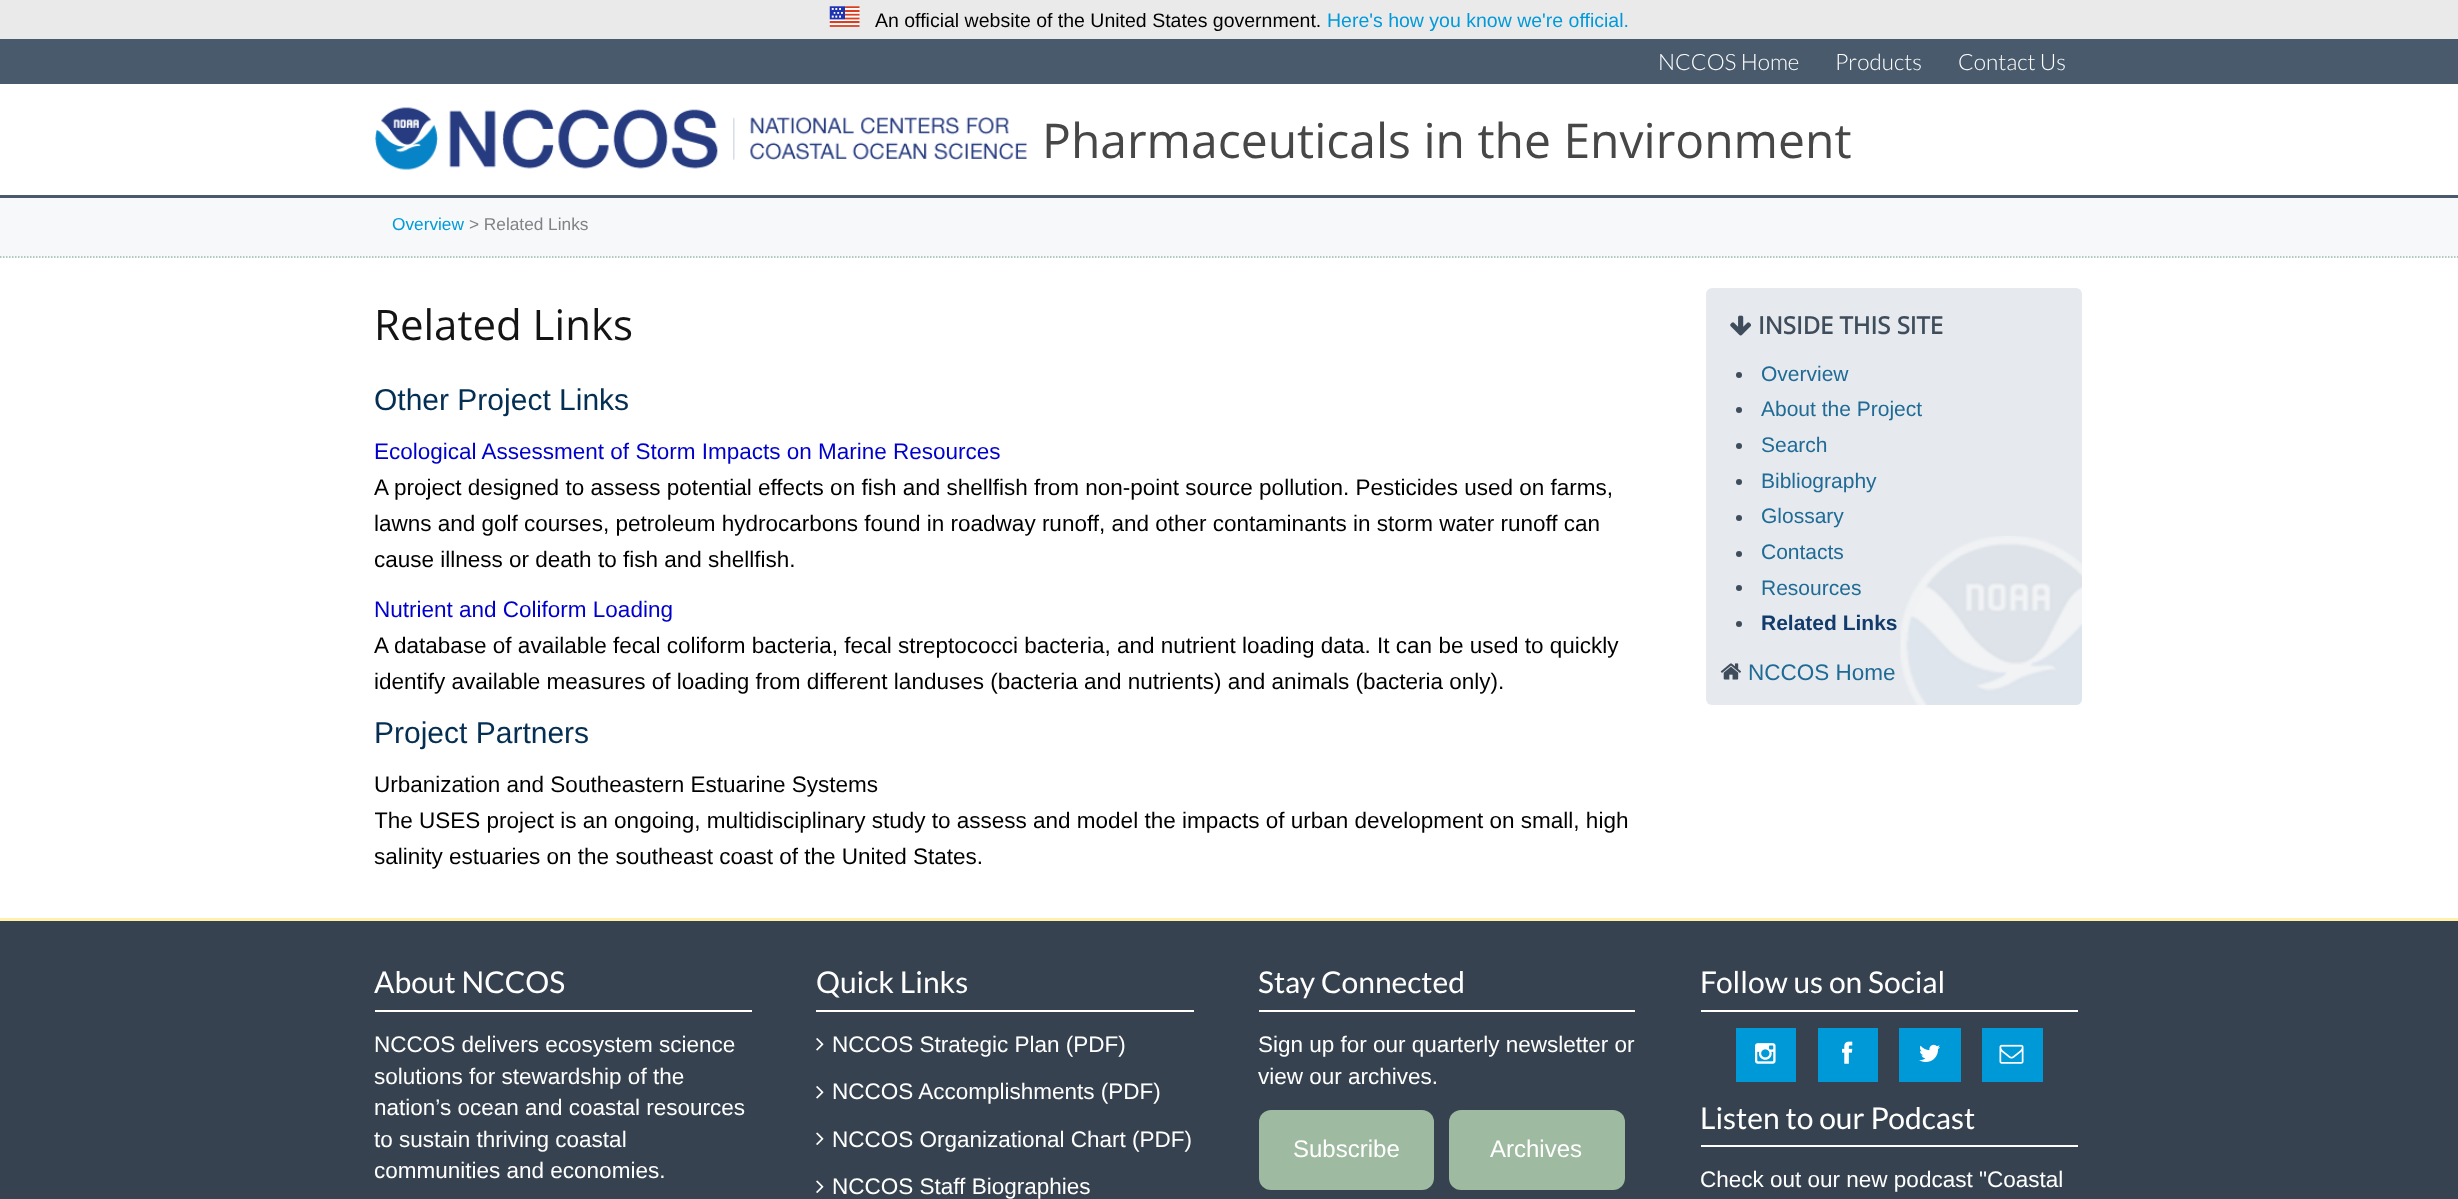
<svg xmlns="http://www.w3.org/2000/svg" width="2458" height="1199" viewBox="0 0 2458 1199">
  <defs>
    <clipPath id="clip1"><rect x="375" y="288" width="1710" height="593"/></clipPath>
  </defs>
  <rect width="100%" height="100%" fill="rgb(255,255,255)"/>
  <rect x="0" y="195" width="2458" height="3" fill="rgb(73,90,108)"/>
  <rect x="0" y="39" width="2458" height="45" fill="rgb(73,90,108)"/>
  <rect x="0" y="0" width="2458" height="39" fill="rgb(234,234,234)"/>
  <image x="829" y="6" width="31" height="21" href="pic1.png"/>
  <text x="875" y="27" font-family="Liberation Sans" font-size="19.5" fill="rgb(0,0,0)">An official website of the United States government.</text>
  <text x="1327" y="27" font-family="Liberation Sans" font-size="19.5" fill="rgb(0,154,218)">Here's how you know we're official.</text>
  <g font-family="Lato" font-size="22.5" font-weight="300" fill="rgb(255,255,255)">
    <text x="1658" y="70">NCCOS Home</text>
    <text x="1835" y="70">Products</text>
    <text x="1958" y="70">Contact Us</text>
  </g>
  <image x="375" y="107" width="652" height="63" href="pic2.png"/>
  <text x="1042" y="158" font-family="Open Sans" font-size="48" fill="rgb(71,71,71)">Pharmaceuticals in the Environment</text>
  <rect x="0" y="198" width="2458" height="60" fill="rgb(247,248,250)"/>
  <path d="M0 257H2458.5" fill="none" stroke="rgb(158,186,173)" stroke-width="1.5" stroke-dasharray="1.5 1.5"/>
  <text x="392" y="230" font-family="Liberation Sans" font-size="17.25" fill="rgb(0,154,218)">Overview</text>
  <text x="469" y="230" font-family="Liberation Sans" font-size="17.25" fill="rgb(129,130,133)">&gt; Related Links</text>
  <rect x="0" y="918" width="2458" height="3" fill="rgb(255,241,171)"/>
  <text x="374" y="340" font-family="Open Sans" font-size="42" fill="rgb(20,20,20)">Related Links</text>
  <text x="374" y="410" font-family="Liberation Sans" font-size="30" fill="rgb(4,46,82)">Other Project Links</text>
  <text x="374" y="459" font-family="Liberation Sans" font-size="22.5" fill="rgb(0,0,204)">Ecological Assessment of Storm Impacts on Marine Resources</text>
  <g font-family="Liberation Sans" font-size="22.5" fill="rgb(0,0,0)">
    <text>
      <tspan x="374" y="495">A project designed to assess potential effects on fish and shellfish from non-point source pollution. Pesticides used on farms,</tspan>
      <tspan x="374" y="531">lawns and golf courses, petroleum hydrocarbons found in roadway runoff, and other contaminants in storm water runoff can</tspan>
      <tspan x="374" y="567">cause illness or death to fish and shellfish.</tspan>
    </text>
  </g>
  <text x="374" y="617" font-family="Liberation Sans" font-size="22.5" fill="rgb(0,0,204)">Nutrient and Coliform Loading</text>
  <g font-family="Liberation Sans" font-size="22.5" fill="rgb(0,0,0)">
    <text>
      <tspan x="374" y="653">A database of available fecal coliform bacteria, fecal streptococci bacteria, and nutrient loading data. It can be used to quickly</tspan>
      <tspan x="374" y="689">identify available measures of loading from different landuses (bacteria and nutrients) and animals (bacteria only).</tspan>
    </text>
  </g>
  <text x="374" y="743" font-family="Liberation Sans" font-size="30" fill="rgb(4,46,82)">Project Partners</text>
  <text x="374" y="792" font-family="Liberation Sans" font-size="22.5" fill="rgb(0,0,0)">Urbanization and Southeastern Estuarine Systems</text>
  <g clip-path="url(#clip1)">
    <text x="374" y="828" font-family="Liberation Sans" font-size="22.5" fill="rgb(0,0,0)">The USES project is an ongoing, multidisciplinary study to assess and model the impacts of urban development on small, high</text>
  </g>
  <text x="374" y="864" font-family="Liberation Sans" font-size="22.5" fill="rgb(0,0,0)">salinity estuaries on the southeast coast of the United States.</text>
  <rect x="1706" y="288" width="376" height="417" rx="6" fill="rgb(230,234,238)"/>
  <image x="1900" y="536" width="182" height="169" href="pic3.png"/>
  <image x="1730" y="315" width="21" height="21" href="pic4.png"/>
  <text x="1758" y="334" font-family="Open Sans" font-size="24" font-weight="bold" fill="rgb(62,76,91)">INSIDE THIS SITE</text>
  <circle cx="1739" cy="375" r="3" fill="rgb(62,76,91)"/>
  <text x="1761" y="381" font-family="Liberation Sans" font-size="21" fill="rgb(32,107,149)">Overview</text>
  <circle cx="1739" cy="410" r="3" fill="rgb(62,76,91)"/>
  <text x="1761" y="416" font-family="Liberation Sans" font-size="21" fill="rgb(32,107,149)">About the Project</text>
  <circle cx="1739" cy="446" r="3" fill="rgb(62,76,91)"/>
  <text x="1761" y="452" font-family="Liberation Sans" font-size="21" fill="rgb(32,107,149)">Search</text>
  <circle cx="1739" cy="482" r="3" fill="rgb(62,76,91)"/>
  <text x="1761" y="488" font-family="Liberation Sans" font-size="21" fill="rgb(32,107,149)">Bibliography</text>
  <circle cx="1739" cy="518" r="3" fill="rgb(62,76,91)"/>
  <text x="1761" y="523" font-family="Liberation Sans" font-size="21" fill="rgb(32,107,149)">Glossary</text>
  <circle cx="1739" cy="554" r="3" fill="rgb(62,76,91)"/>
  <text x="1761" y="559" font-family="Liberation Sans" font-size="21" fill="rgb(32,107,149)">Contacts</text>
  <circle cx="1739" cy="588" r="3" fill="rgb(62,76,91)"/>
  <text x="1761" y="595" font-family="Liberation Sans" font-size="21" fill="rgb(32,107,149)">Resources</text>
  <circle cx="1739" cy="624" r="3" fill="rgb(62,76,91)"/>
  <text x="1761" y="630" font-family="Liberation Sans" font-size="21" font-weight="bold" fill="rgb(18,59,107)">Related Links</text>
  <image x="1720" y="663" width="21" height="17" href="pic5.png"/>
  <text x="1748" y="680" font-family="Liberation Sans" font-size="22.5" fill="rgb(32,107,149)">NCCOS Home</text>
  <rect x="0" y="921" width="2458" height="278" fill="rgb(54,66,79)"/>
  <text x="374" y="993" font-family="Lato" font-size="30" fill="rgb(255,255,255)">About NCCOS</text>
  <rect x="375" y="1010" width="377" height="2" fill="rgb(255,255,255)"/>
  <g font-family="Liberation Sans" font-size="22.5" fill="rgb(255,255,255)">
    <text>
      <tspan x="374" y="1052">NCCOS delivers ecosystem science</tspan>
      <tspan x="374" y="1084">solutions for stewardship of the</tspan>
      <tspan x="374" y="1115">nation’s ocean and coastal resources</tspan>
      <tspan x="374" y="1147">to sustain thriving coastal</tspan>
      <tspan x="374" y="1178">communities and economies.</tspan>
    </text>
  </g>
  <text x="816" y="993" font-family="Lato" font-size="30" fill="rgb(255,255,255)">Quick Links</text>
  <rect x="816" y="1010" width="378" height="2" fill="rgb(255,255,255)"/>
  <image x="816" y="1038" width="8" height="13" href="pic6.png"/>
  <text x="832" y="1052" font-family="Liberation Sans" font-size="22.5" fill="rgb(255,255,255)">NCCOS Strategic Plan (PDF)</text>
  <image x="816" y="1086" width="8" height="13" href="pic6.png"/>
  <text x="832" y="1099" font-family="Liberation Sans" font-size="22.5" fill="rgb(255,255,255)">NCCOS Accomplishments (PDF)</text>
  <image x="816" y="1132" width="8" height="13" href="pic7.png"/>
  <text x="832" y="1147" font-family="Liberation Sans" font-size="22.5" fill="rgb(255,255,255)">NCCOS Organizational Chart (PDF)</text>
  <image x="816" y="1180" width="8" height="13" href="pic7.png"/>
  <text x="832" y="1194" font-family="Liberation Sans" font-size="22.5" fill="rgb(255,255,255)">NCCOS Staff Biographies</text>
  <text x="1258" y="993" font-family="Lato" font-size="30" fill="rgb(255,255,255)">Stay Connected</text>
  <rect x="1259" y="1010" width="376" height="2" fill="rgb(255,255,255)"/>
  <g font-family="Liberation Sans" font-size="22.5" fill="rgb(255,255,255)">
    <text>
      <tspan x="1258" y="1052">Sign up for our quarterly newsletter or</tspan>
      <tspan x="1258" y="1084">view our archives.</tspan>
    </text>
  </g>
  <rect x="1259" y="1110" width="175" height="80" rx="12" fill="rgb(158,186,160)"/>
  <text x="1293" y="1157" font-family="Liberation Sans" font-size="24" fill="rgb(255,255,255)">Subscribe</text>
  <rect x="1449" y="1110" width="176" height="80" rx="12" fill="rgb(158,186,160)"/>
  <text x="1490" y="1157" font-family="Liberation Sans" font-size="24" fill="rgb(255,255,255)">Archives</text>
  <text x="1700" y="993" font-family="Lato" font-size="30" fill="rgb(255,255,255)">Follow us on Social</text>
  <rect x="1701" y="1010" width="377" height="2" fill="rgb(255,255,255)"/>
  <rect x="1736" y="1028" width="60" height="54" fill="rgb(0,153,216)"/>
  <image x="1755" y="1043" width="21" height="21" href="pic8.png"/>
  <rect x="1818" y="1028" width="60" height="54" fill="rgb(0,153,216)"/>
  <image x="1842" y="1041" width="11" height="23" href="pic9.png"/>
  <rect x="1899" y="1028" width="62" height="54" fill="rgb(0,153,216)"/>
  <image x="1919" y="1044" width="21" height="18" href="pic10.png"/>
  <rect x="1982" y="1028" width="61" height="54" fill="rgb(0,153,216)"/>
  <image x="1999" y="1044" width="25" height="20" href="pic11.png"/>
  <text x="1700" y="1129" font-family="Lato" font-size="30" fill="rgb(255,255,255)">Listen to our Podcast</text>
  <rect x="1701" y="1145" width="377" height="2" fill="rgb(255,255,255)"/>
  <text x="1700" y="1187" font-family="Liberation Sans" font-size="22.5" fill="rgb(255,255,255)">Check out our new podcast "Coastal</text>
</svg>
